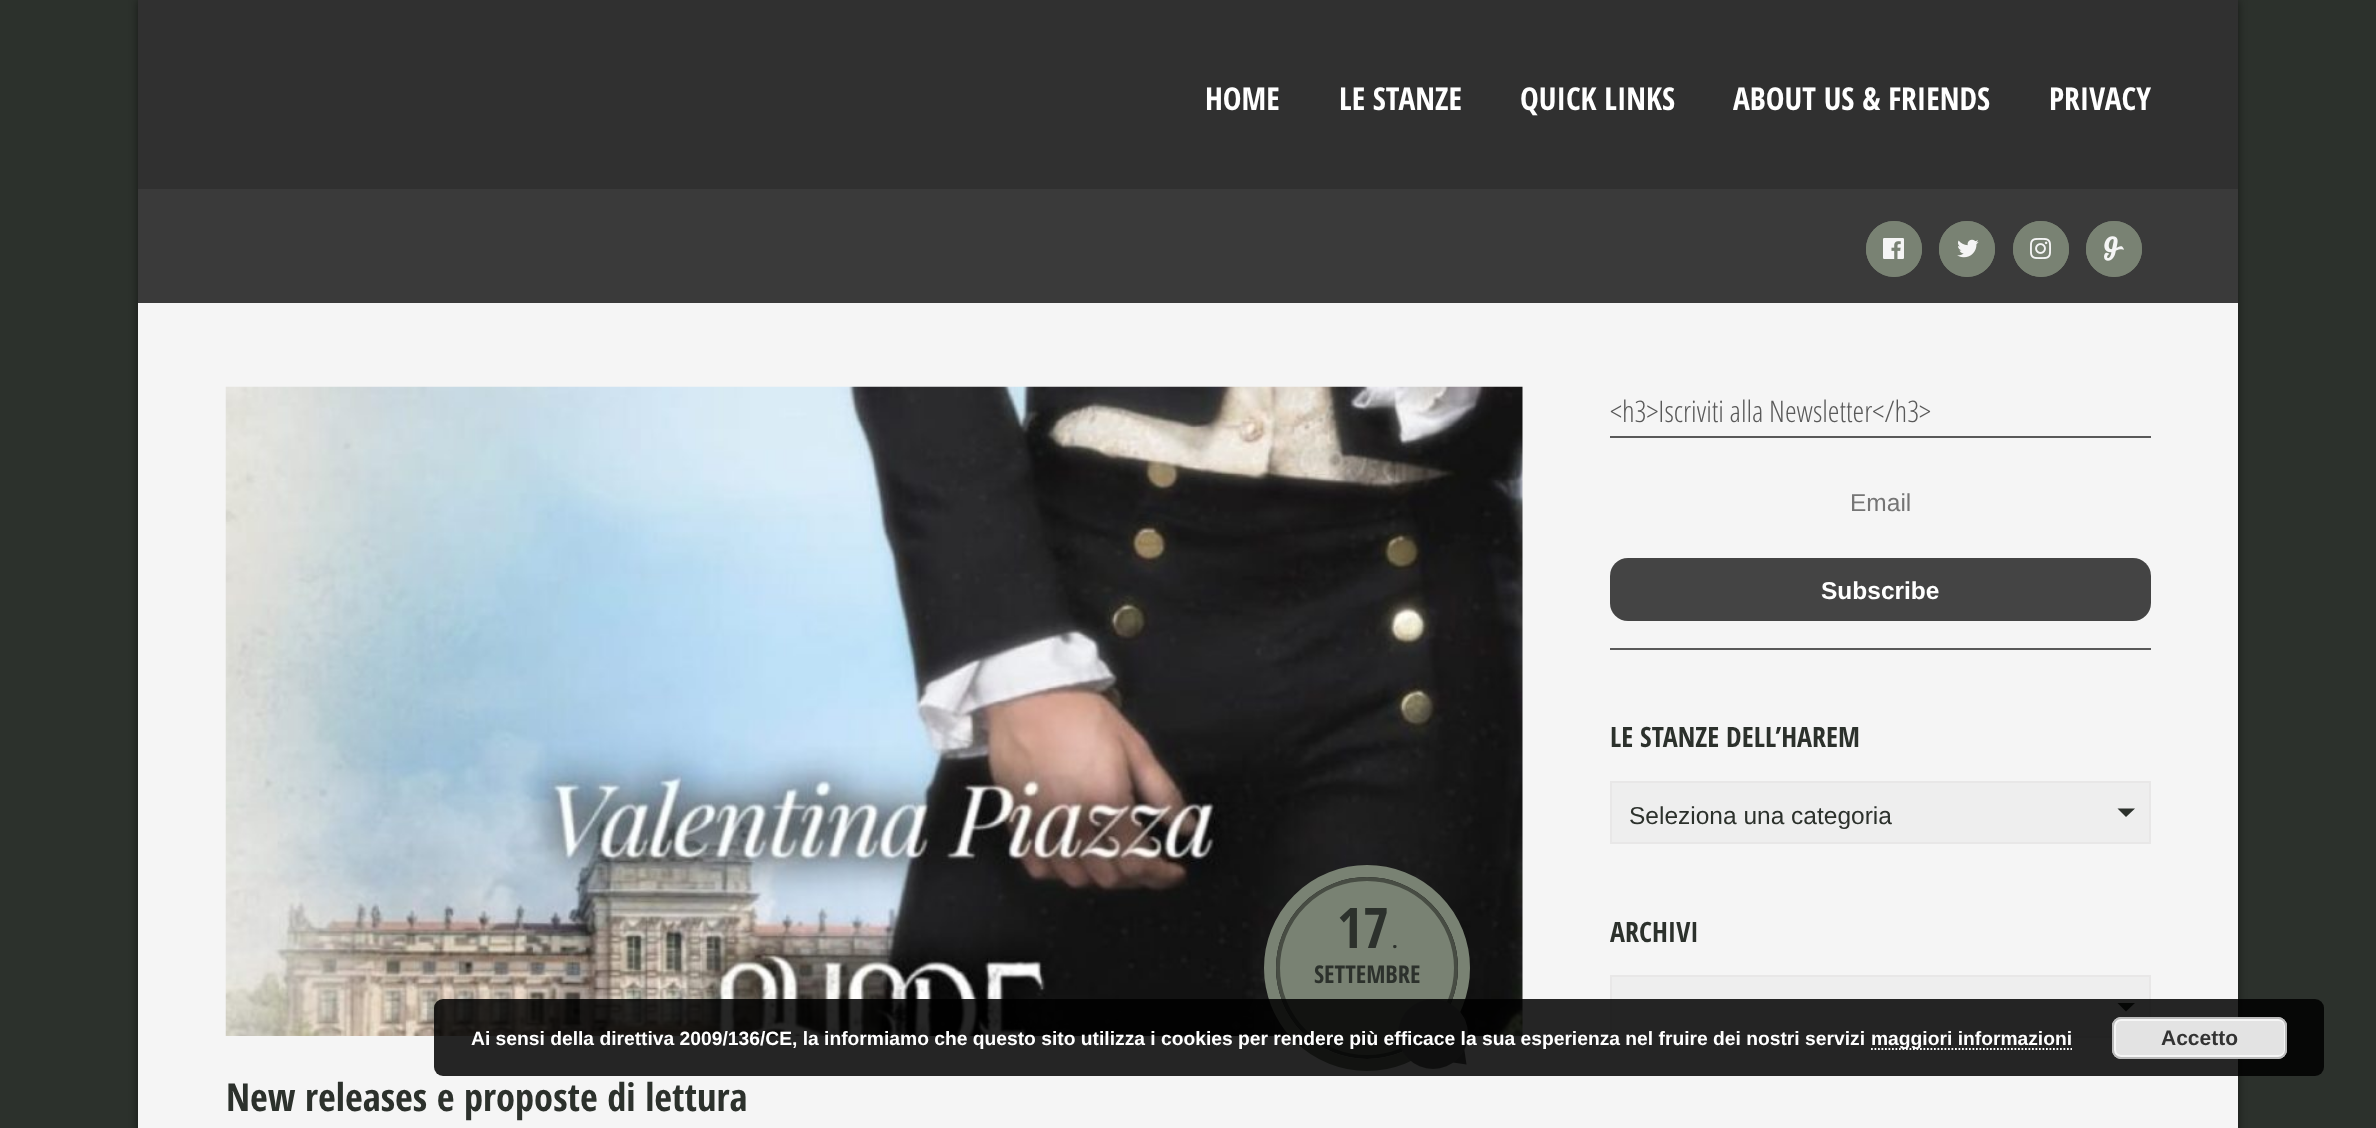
<svg xmlns="http://www.w3.org/2000/svg" width="2376" height="1128" viewBox="0 0 2376 1128">
  <rect width="100%" height="100%" fill="rgb(44,49,44)"/>
  <rect x="138" y="0" width="2100" height="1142" fill="rgba(0,0,0,0.5)" filter="blur(4.5px)"/>
  <rect x="138" y="303" width="2100" height="825" fill="rgb(245,245,245)"/>
  <rect x="138" y="0" width="2100" height="189" fill="rgb(48,48,48)"/>
  <g font-family="Open Sans Condensed" font-size="31.5" font-weight="bold" fill="rgb(255,255,255)">
    <text x="1205" y="110">HOME</text>
    <text x="1339" y="110">LE STANZE</text>
    <text x="1520" y="110">QUICK LINKS</text>
    <text x="1733" y="110">ABOUT US &amp; FRIENDS</text>
    <text x="2049" y="110">PRIVACY</text>
  </g>
  <rect x="138" y="189" width="2100" height="114" fill="rgb(58,58,58)"/>
  <circle cx="1894" cy="249" r="19" fill="none" stroke="rgb(121,130,115)" stroke-width="18"/>
  <circle cx="1894" cy="249" r="28" fill="rgb(121,130,115)"/>
  <image x="1883" y="238" width="21" height="21" href="pic1.png"/>
  <circle cx="1967" cy="249" r="19" fill="none" stroke="rgb(121,130,115)" stroke-width="18"/>
  <circle cx="1967" cy="249" r="28" fill="rgb(121,130,115)"/>
  <image x="1957" y="239" width="22" height="19" href="pic2.png"/>
  <circle cx="2041" cy="249" r="19" fill="none" stroke="rgb(121,130,115)" stroke-width="18"/>
  <circle cx="2041" cy="249" r="28" fill="rgb(121,130,115)"/>
  <image x="2030" y="238" width="21" height="21" href="pic3.png"/>
  <circle cx="2114" cy="249" r="19" fill="none" stroke="rgb(121,130,115)" stroke-width="18"/>
  <circle cx="2114" cy="249" r="28" fill="rgb(121,130,115)"/>
  <image x="2104" y="236" width="20" height="25" href="pic4.png"/>
  <text x="1610" y="422" font-family="Open Sans Condensed" font-size="29.75" font-weight="300" fill="rgb(89,89,89)">&lt;h3&gt;Iscriviti alla Newsletter&lt;/h3&gt;</text>
  <rect x="1610" y="436" width="541" height="2" fill="rgb(89,89,89)"/>
  <rect x="1610" y="648" width="541" height="2" fill="rgb(89,89,89)"/>
  <text x="1850" y="511" font-family="Liberation Sans" font-size="24.5" fill="rgb(117,117,117)">Email</text>
  <rect x="1610" y="558" width="541" height="63" rx="18" fill="rgb(68,68,68)"/>
  <text x="1821" y="599" font-family="Liberation Sans" font-size="24.5" font-weight="bold" fill="rgb(255,255,255)">Subscribe</text>
  <text x="1610" y="747" font-family="Open Sans Condensed" font-size="28" font-weight="bold" fill="rgb(44,49,44)">LE STANZE DELL’HAREM</text>
  <rect x="1611" y="782" width="539" height="61" fill="rgb(238,238,238)" stroke="rgb(232,231,231)" stroke-width="2"/>
  <text x="1629" y="824" font-family="Liberation Sans" font-size="24.5" fill="rgb(44,49,44)">Seleziona una categoria</text>
  <path d="M2117.5 808.5H2135L2126 817Z" fill="rgb(44,49,44)"/>
  <text x="1610" y="942" font-family="Open Sans Condensed" font-size="28" font-weight="bold" fill="rgb(44,49,44)">ARCHIVI</text>
  <rect x="1611" y="976" width="539" height="61" fill="rgb(238,238,238)" stroke="rgb(232,231,231)" stroke-width="2"/>
  <path d="M2117.5 1003H2135L2126 1011.5Z" fill="rgb(44,49,44)"/>
  <image x="225" y="386" width="1298" height="650" href="pic5.png"/>
  <circle cx="1367" cy="968" r="97" fill="none" stroke="rgb(121,130,115)" stroke-width="12"/>
  <circle cx="1367" cy="968" r="89" fill="rgb(121,130,115)" stroke="rgb(71,76,67)" stroke-width="4"/>
  <text x="1337" y="948" font-family="Open Sans Condensed" font-size="56" font-weight="bold" fill="rgb(44,49,44)">17</text>
  <text x="1392" y="948" font-family="Open Sans Condensed" font-size="21" font-weight="bold" fill="rgb(44,49,44)">.</text>
  <text x="1314" y="983" font-family="Open Sans Condensed" font-size="24.5" font-weight="bold" fill="rgb(44,49,44)">SETTEMBRE</text>
  <circle cx="1433" cy="1034" r="35" fill="rgb(89,89,89)"/>
  <path d="M1449.5 1062L1464 1047.5L1466.5 1064.5Z" fill="rgb(89,89,89)"/>
  <circle cx="1433" cy="1034" r="35" fill="rgba(255,255,255,0.1)"/>
  <text x="226" y="1111" font-family="Open Sans Condensed" font-size="38.5" font-weight="bold" fill="rgb(44,49,44)">New releases e proposte di lettura</text>
  <rect x="434" y="999" width="1890" height="77" rx="9" fill="rgba(0,0,0,0.85)"/>
  <text x="471" y="1045" font-family="Liberation Sans" font-size="19.25" font-weight="bold" fill="rgb(255,255,255)">Ai sensi della direttiva 2009/136/CE, la informiamo che questo sito utilizza i cookies per rendere più efficace la sua esperienza nel fruire dei nostri servizi</text>
  <path d="M1871 1049H2072" fill="none" stroke="rgb(255,255,255)" stroke-width="1.8" stroke-dasharray="1.75 1.75"/>
  <text x="1871" y="1045" font-family="Liberation Sans" font-size="19.25" font-weight="bold" fill="rgb(255,255,255)">maggiori informazioni</text>
  <rect x="2112" y="1017" width="175" height="42" rx="9" fill="rgb(227,227,227)"/>
  <rect x="2115" y="1020" width="170" height="36" rx="6" fill="none" stroke="rgb(246,246,246)" stroke-width="2"/>
  <rect x="2113" y="1018" width="173" height="40" rx="8" fill="none" stroke="rgb(187,187,187)" stroke-width="2"/>
  <text x="2161" y="1045" font-family="Liberation Sans" font-size="21" font-weight="bold" fill="rgb(51,51,51)">Accetto</text>
</svg>
